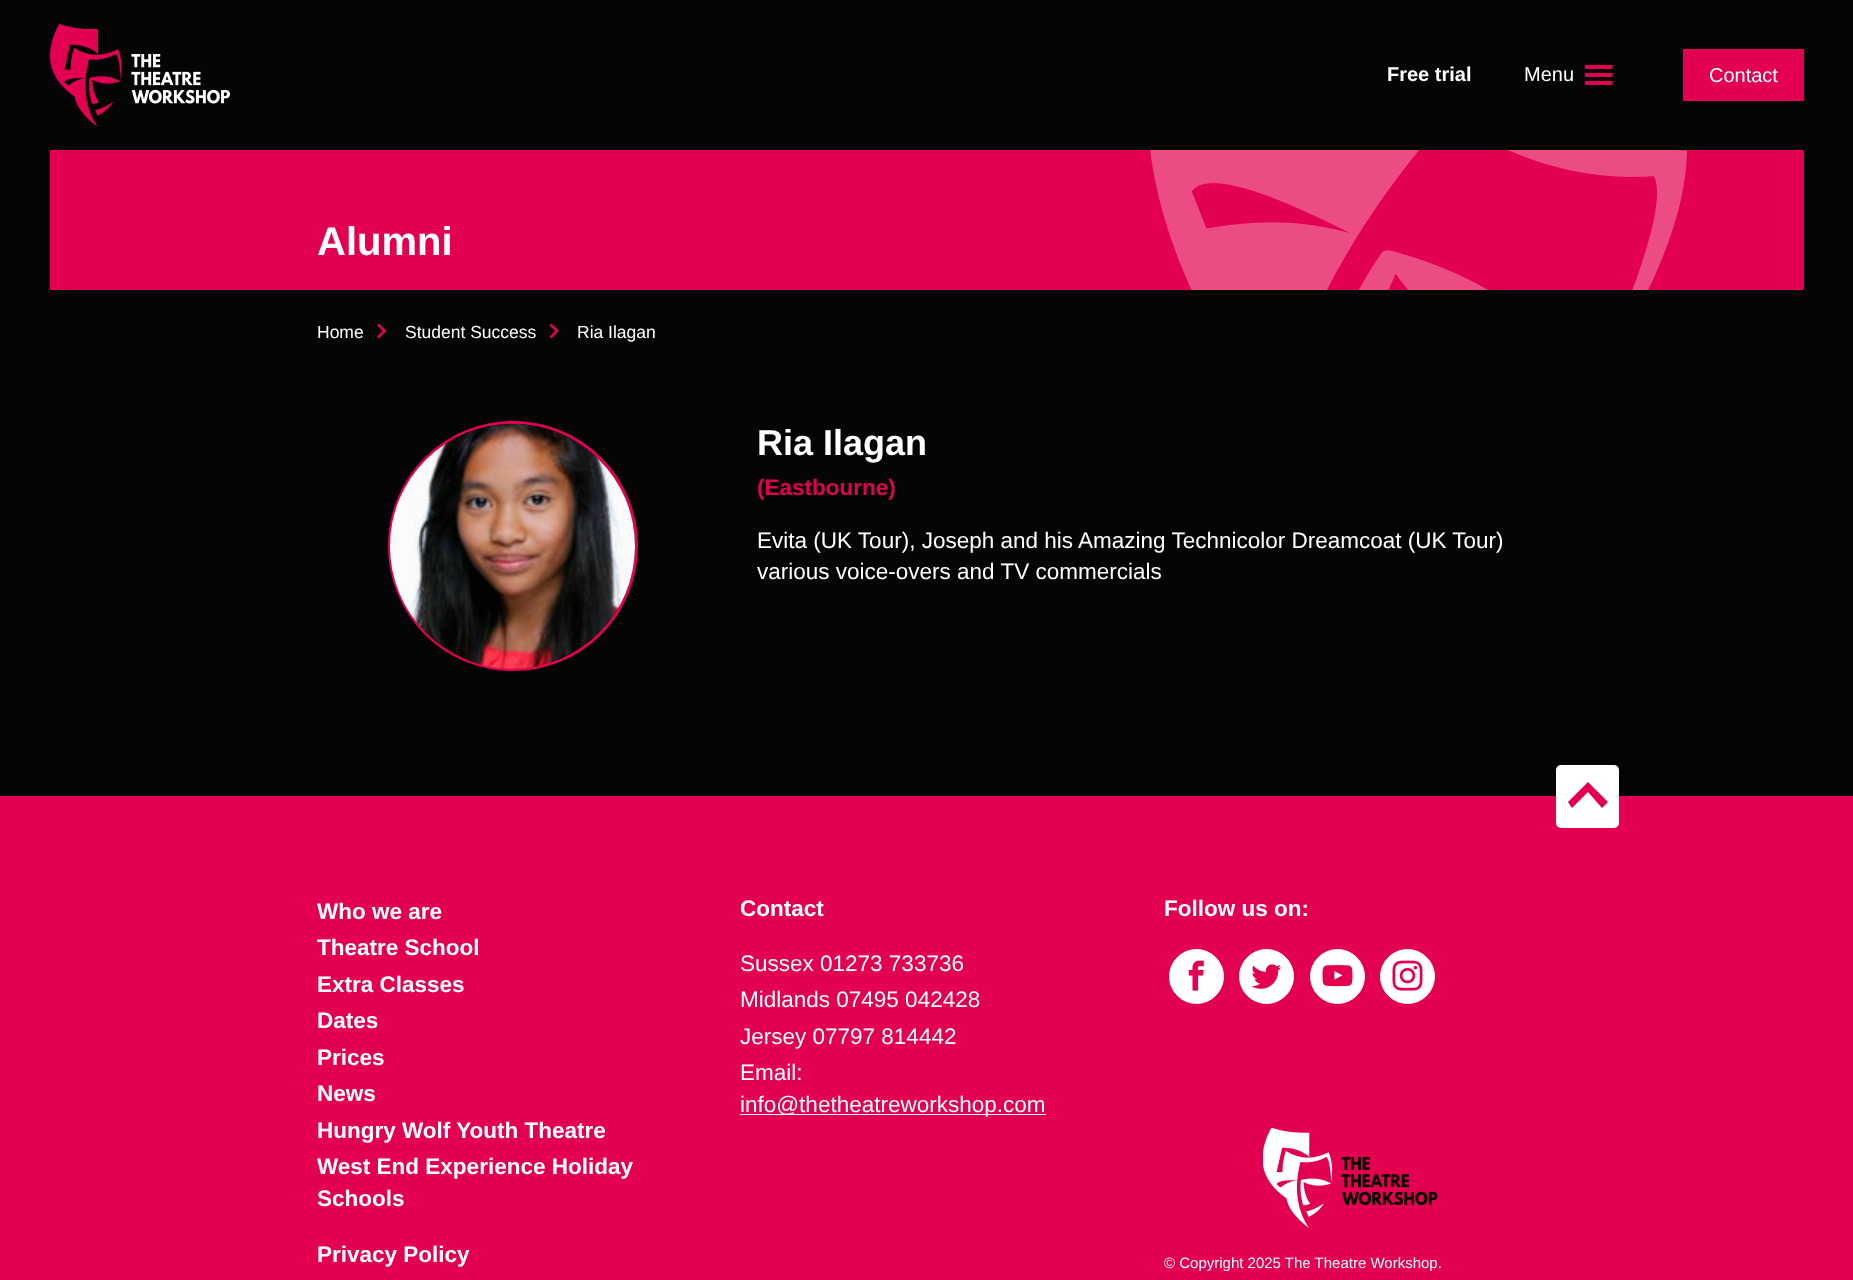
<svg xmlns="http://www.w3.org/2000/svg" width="1853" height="1280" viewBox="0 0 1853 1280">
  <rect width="100%" height="100%" fill="rgb(5,4,7)"/>
  <image x="50" y="24" width="180" height="102" href="pic1.png"/>
  <text x="1387" y="81" font-family="Liberation Sans" font-size="20" font-weight="bold" fill="rgb(255,255,255)">Free trial</text>
  <text x="1524" y="81" font-family="Liberation Sans" font-size="20" fill="rgb(255,255,255)">Menu</text>
  <image x="1584" y="65" width="29" height="20" href="pic2.png"/>
  <rect x="1683" y="49" width="121" height="52" fill="rgb(227,0,80)"/>
  <text x="1709" y="82" font-family="Liberation Sans" font-size="20" fill="rgb(255,255,255)">Contact</text>
  <rect x="50" y="150" width="1754" height="140" fill="rgb(227,0,80)"/>
  <text x="317" y="255" font-family="Liberation Sans" font-size="40" font-weight="bold" fill="rgb(255,255,255)">Alumni</text>
  <image x="1150" y="150" width="537" height="140" href="pic3.png"/>
  <text x="317" y="338" font-family="Liberation Sans" font-size="17.5" fill="rgb(255,255,255)">Home</text>
  <image x="377" y="323" width="10" height="16" href="pic4.png"/>
  <text x="405" y="338" font-family="Liberation Sans" font-size="17.5" fill="rgb(255,255,255)">Student Success</text>
  <image x="549" y="323" width="10" height="16" href="pic5.png"/>
  <text x="577" y="338" font-family="Liberation Sans" font-size="17.5" fill="rgb(255,255,255)">Ria Ilagan</text>
  <circle cx="513" cy="546" r="123.5" fill="none" stroke="rgb(227,0,80)" stroke-width="3"/>
  <image x="390" y="423" width="245" height="246" href="pic6.png"/>
  <text x="757" y="455" font-family="Liberation Sans" font-size="36" font-weight="bold" fill="rgb(255,255,255)">Ria Ilagan</text>
  <text x="757" y="495" font-family="Liberation Sans" font-size="22.5" font-weight="bold" fill="rgb(227,0,80)">(Eastbourne)</text>
  <g font-family="Liberation Sans" font-size="22.5" fill="rgb(255,255,255)">
    <text>
      <tspan x="757" y="548">Evita (UK Tour), Joseph and his Amazing Technicolor Dreamcoat (UK Tour)</tspan>
      <tspan x="757" y="579">various voice-overs and TV commercials</tspan>
    </text>
  </g>
  <rect x="0" y="796" width="1853" height="484" fill="rgb(227,0,80)"/>
  <rect x="1556" y="765" width="63" height="63" rx="5" fill="rgb(255,255,255)"/>
  <path d="M1568 802L1572 808L1588 792L1602 808L1608 802L1588 782Z" fill="rgb(227,0,80)"/>
  <g font-family="Liberation Sans" font-size="22.5" font-weight="bold" fill="rgb(255,255,255)">
    <text>
      <tspan x="317" y="919">Who we are</tspan>
      <tspan x="317" y="955">Theatre School</tspan>
      <tspan x="317" y="992">Extra Classes</tspan>
      <tspan x="317" y="1028">Dates</tspan>
      <tspan x="317" y="1065">Prices</tspan>
      <tspan x="317" y="1101">News</tspan>
      <tspan x="317" y="1138">Hungry Wolf Youth Theatre</tspan>
      <tspan x="317" y="1174">West End Experience Holiday</tspan>
      <tspan x="317" y="1206">Schools</tspan>
    </text>
    <text x="317" y="1262">Privacy Policy</text>
    <text x="740" y="916">Contact</text>
  </g>
  <g font-family="Liberation Sans" font-size="22.5" fill="rgb(255,255,255)">
    <text>
      <tspan x="740" y="971">Sussex 01273 733736</tspan>
      <tspan x="740" y="1007">Midlands 07495 042428</tspan>
      <tspan x="740" y="1044">Jersey 07797 814442</tspan>
      <tspan x="740" y="1080">Email:</tspan>
    </text>
  </g>
  <rect x="740" y="1114" width="306" height="1" fill="rgb(255,255,255)"/>
  <text x="740" y="1112" font-family="Liberation Sans" font-size="22.5" fill="rgb(255,255,255)">info@thetheatreworkshop.com</text>
  <text x="1164" y="916" font-family="Liberation Sans" font-size="22.5" font-weight="bold" fill="rgb(255,255,255)">Follow us on:</text>
  <circle cx="1196.5" cy="976.5" r="27" fill="rgb(255,255,255)" stroke="rgb(255,255,255)"/>
  <image x="1188" y="960" width="16" height="31" href="pic7.png"/>
  <circle cx="1266.5" cy="976.5" r="27" fill="rgb(255,255,255)" stroke="rgb(255,255,255)"/>
  <image x="1251" y="964" width="31" height="25" href="pic8.png"/>
  <circle cx="1337.5" cy="976.5" r="27" fill="rgb(255,255,255)" stroke="rgb(255,255,255)"/>
  <image x="1322" y="965" width="31" height="22" href="pic9.png"/>
  <circle cx="1407.5" cy="976.5" r="27" fill="rgb(255,255,255)" stroke="rgb(255,255,255)"/>
  <image x="1392" y="960" width="31" height="31" href="pic10.png"/>
  <image x="1263" y="1128" width="175" height="100" href="pic11.png"/>
  <text x="1164" y="1268" font-family="Liberation Sans" font-size="15" fill="rgb(255,255,255)">© Copyright 2025 The Theatre Workshop.</text>
</svg>
